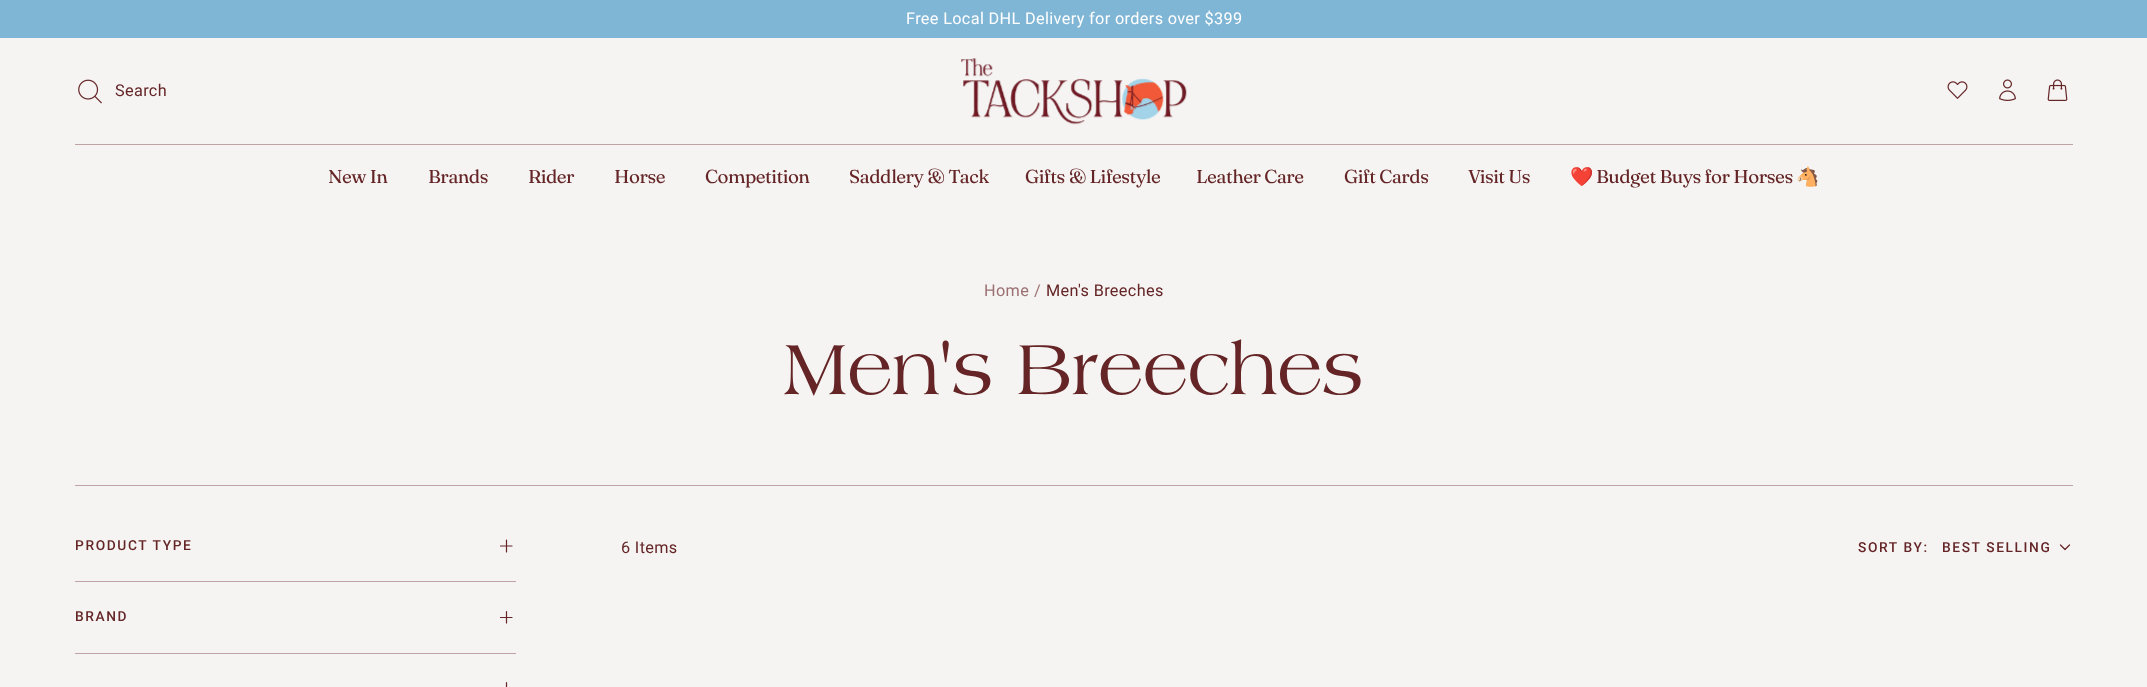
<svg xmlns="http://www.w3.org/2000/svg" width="2147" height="687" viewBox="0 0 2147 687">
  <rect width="100%" height="100%" fill="rgb(245,244,242)"/>
  <rect x="0" y="0" width="2147" height="38" fill="rgb(128,182,213)"/>
  <text x="906" y="24" font-family="Roboto" font-size="16.25" letter-spacing="0.35" fill="rgb(255,255,255)">Free Local DHL Delivery for orders over $399</text>
  <image x="78" y="79" width="24" height="25" href="pic1.png"/>
  <text x="115" y="96" font-family="Roboto" font-size="16.25" letter-spacing="0.35" fill="rgb(101,37,39)">Search</text>
  <image x="1947" y="81" width="21" height="18" href="pic2.png"/>
  <image x="1999" y="79" width="17" height="22" href="pic3.png"/>
  <image x="2047" y="79" width="21" height="22" href="pic4.png"/>
  <image x="961" y="58" width="226" height="67" href="pic5.png"/>
  <rect x="75" y="144" width="1998" height="1" fill="rgb(191,162,164)"/>
  <g font-family="Fraunces" font-size="18.75" letter-spacing="-0.5" fill="rgb(101,37,39)">
    <text x="328" y="183">New In</text>
    <text x="428" y="183">Brands</text>
    <text x="528" y="183">Rider</text>
    <text x="614" y="183">Horse</text>
    <text x="705" y="183">Competition</text>
    <text x="849" y="183">Saddlery &amp; Tack</text>
    <text x="1025" y="183">Gifts &amp; Lifestyle</text>
    <text x="1196" y="183">Leather Care</text>
    <text x="1344" y="183">Gift Cards</text>
    <text x="1468" y="183">Visit Us</text>
  </g>
  <text x="1570" y="183" font-family="Noto Color Emoji" font-size="18.75" letter-spacing="-0.5" fill="rgb(101,37,39)">❤️</text>
  <text x="1596" y="183" font-family="'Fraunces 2'" font-size="18.75" letter-spacing="-0.5" fill="rgb(101,37,39)">Budget Buys for Horses</text>
  <text x="1796" y="183" font-family="Noto Color Emoji" font-size="18.75" letter-spacing="-0.5" fill="rgb(101,37,39)">🐴</text>
  <rect x="75" y="485" width="1998" height="1" fill="rgb(191,162,164)"/>
  <g font-family="Roboto" font-size="16.25" letter-spacing="0.35" fill="rgb(155,112,114)">
    <text x="984" y="296">Home</text>
    <text x="1034" y="296">/</text>
  </g>
  <text x="1046" y="296" font-family="Roboto" font-size="16.25" letter-spacing="0.35" fill="rgb(101,37,39)">Men's Breeches</text>
  <text x="784" y="394" font-family="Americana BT" font-size="75" letter-spacing="-0.5" fill="rgb(101,37,39)">Men's Breeches</text>
  <rect x="75" y="581" width="441" height="1" fill="rgb(191,162,164)"/>
  <text x="75" y="550" font-family="Roboto" font-size="13.75" font-weight="500" letter-spacing="1.6" fill="rgb(101,37,39)">PRODUCT TYPE</text>
  <path d="M506.5 540V552M512 546H500.5" fill="none" stroke="rgb(101,37,39)" stroke-width="1.2" stroke-linecap="round" stroke-linejoin="round"/>
  <rect x="75" y="653" width="441" height="1" fill="rgb(191,162,164)"/>
  <text x="75" y="621" font-family="Roboto" font-size="13.75" font-weight="500" letter-spacing="1.6" fill="rgb(101,37,39)">BRAND</text>
  <path d="M506.5 611.5V623M512 617.5H500.5" fill="none" stroke="rgb(101,37,39)" stroke-width="1.2" stroke-linecap="round" stroke-linejoin="round"/>
  <path d="M506.5 682.5V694.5M512 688.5H500.5" fill="none" stroke="rgb(101,37,39)" stroke-width="1.2" stroke-linecap="round" stroke-linejoin="round"/>
  <text x="621" y="553" font-family="Roboto" font-size="16.25" letter-spacing="0.35" fill="rgb(101,37,39)">6 Items</text>
  <g font-family="Roboto" font-size="13.75" font-weight="500" letter-spacing="1.6" fill="rgb(101,37,39)">
    <text x="1858" y="552">SORT BY:</text>
    <text x="1942" y="552">BEST SELLING</text>
  </g>
  <path d="M2069.5 545L2065 549.5L2060.5 545" fill="none" stroke="rgb(101,37,39)" stroke-width="1.2" stroke-linecap="round" stroke-linejoin="round"/>
</svg>
